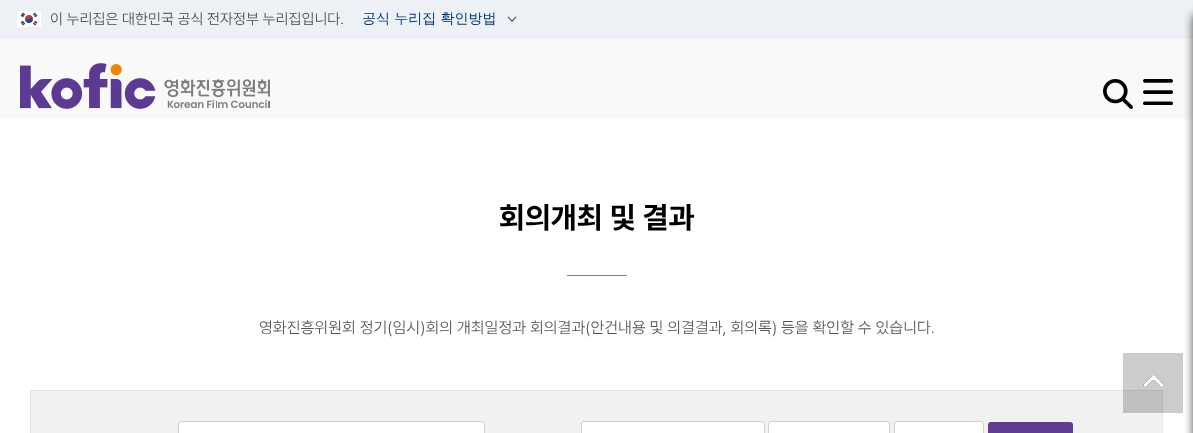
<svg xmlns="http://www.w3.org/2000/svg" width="1193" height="433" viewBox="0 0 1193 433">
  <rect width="100%" height="100%" fill="rgb(255,255,255)"/>
  <rect x="0" y="0" width="1193" height="39" fill="rgb(237,241,245)"/>
  <image x="17" y="11" width="24" height="16" href="pic1.png"/>
  <text x="50" y="24" font-family="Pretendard" font-size="15" font-weight="300" fill="rgb(70,70,70)">이 누리집은 대한민국 공식 전자정부 누리집입니다.</text>
  <text x="362" y="23" font-family="WenQuanYi Zen Hei" font-size="14" font-weight="500" fill="rgb(0,54,117)">공식 누리집 확인방법</text>
  <image x="507" y="16" width="10" height="6" href="pic2.png"/>
  <rect x="0" y="39" width="1193" height="80" fill="rgb(249,249,249)"/>
  <rect x="30.5" y="390.5" width="1132" height="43" fill="rgb(241,241,241)" stroke="rgb(228,228,228)"/>
  <rect x="1123" y="353" width="60" height="60" fill="rgba(0,0,0,0.2)"/>
  <rect x="1193" y="15" width="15" height="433" fill="rgba(0,0,0,0.7)" filter="blur(5px)"/>
  <image x="20" y="63" width="250" height="46" href="pic3.png"/>
  <image x="1103" y="79" width="30" height="30" href="pic4.png"/>
  <image x="1143" y="79" width="30" height="26" href="pic5.png"/>
  <text x="499" y="228" font-family="Pretendard" font-size="30" font-weight="bold" fill="rgb(0,0,0)">회의개최 및 결과</text>
  <rect x="567" y="275" width="60" height="1" fill="rgb(130,130,130)"/>
  <text x="259" y="333" font-family="Pretendard" font-size="16" font-weight="300" fill="rgb(81,81,81)">영화진흥위원회 정기(임시)회의 개최일정과 회의결과(안건내용 및 의결결과, 회의록) 등을 확인할 수 있습니다.</text>
  <rect x="178.5" y="421.5" width="306" height="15" rx="2.5" fill="rgb(255,255,255)" stroke="rgb(208,208,208)"/>
  <rect x="581.5" y="421.5" width="183" height="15" rx="2.5" fill="rgb(255,255,255)" stroke="rgb(208,208,208)"/>
  <rect x="768.5" y="421.5" width="121" height="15" rx="2.5" fill="rgb(255,255,255)" stroke="rgb(208,208,208)"/>
  <rect x="894.5" y="421.5" width="89" height="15" rx="2.5" fill="rgb(255,255,255)" stroke="rgb(208,208,208)"/>
  <rect x="988" y="422" width="85" height="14" rx="3" fill="rgb(98,60,145)"/>
  <image x="1143" y="375" width="20" height="12" href="pic6.png"/>
</svg>
